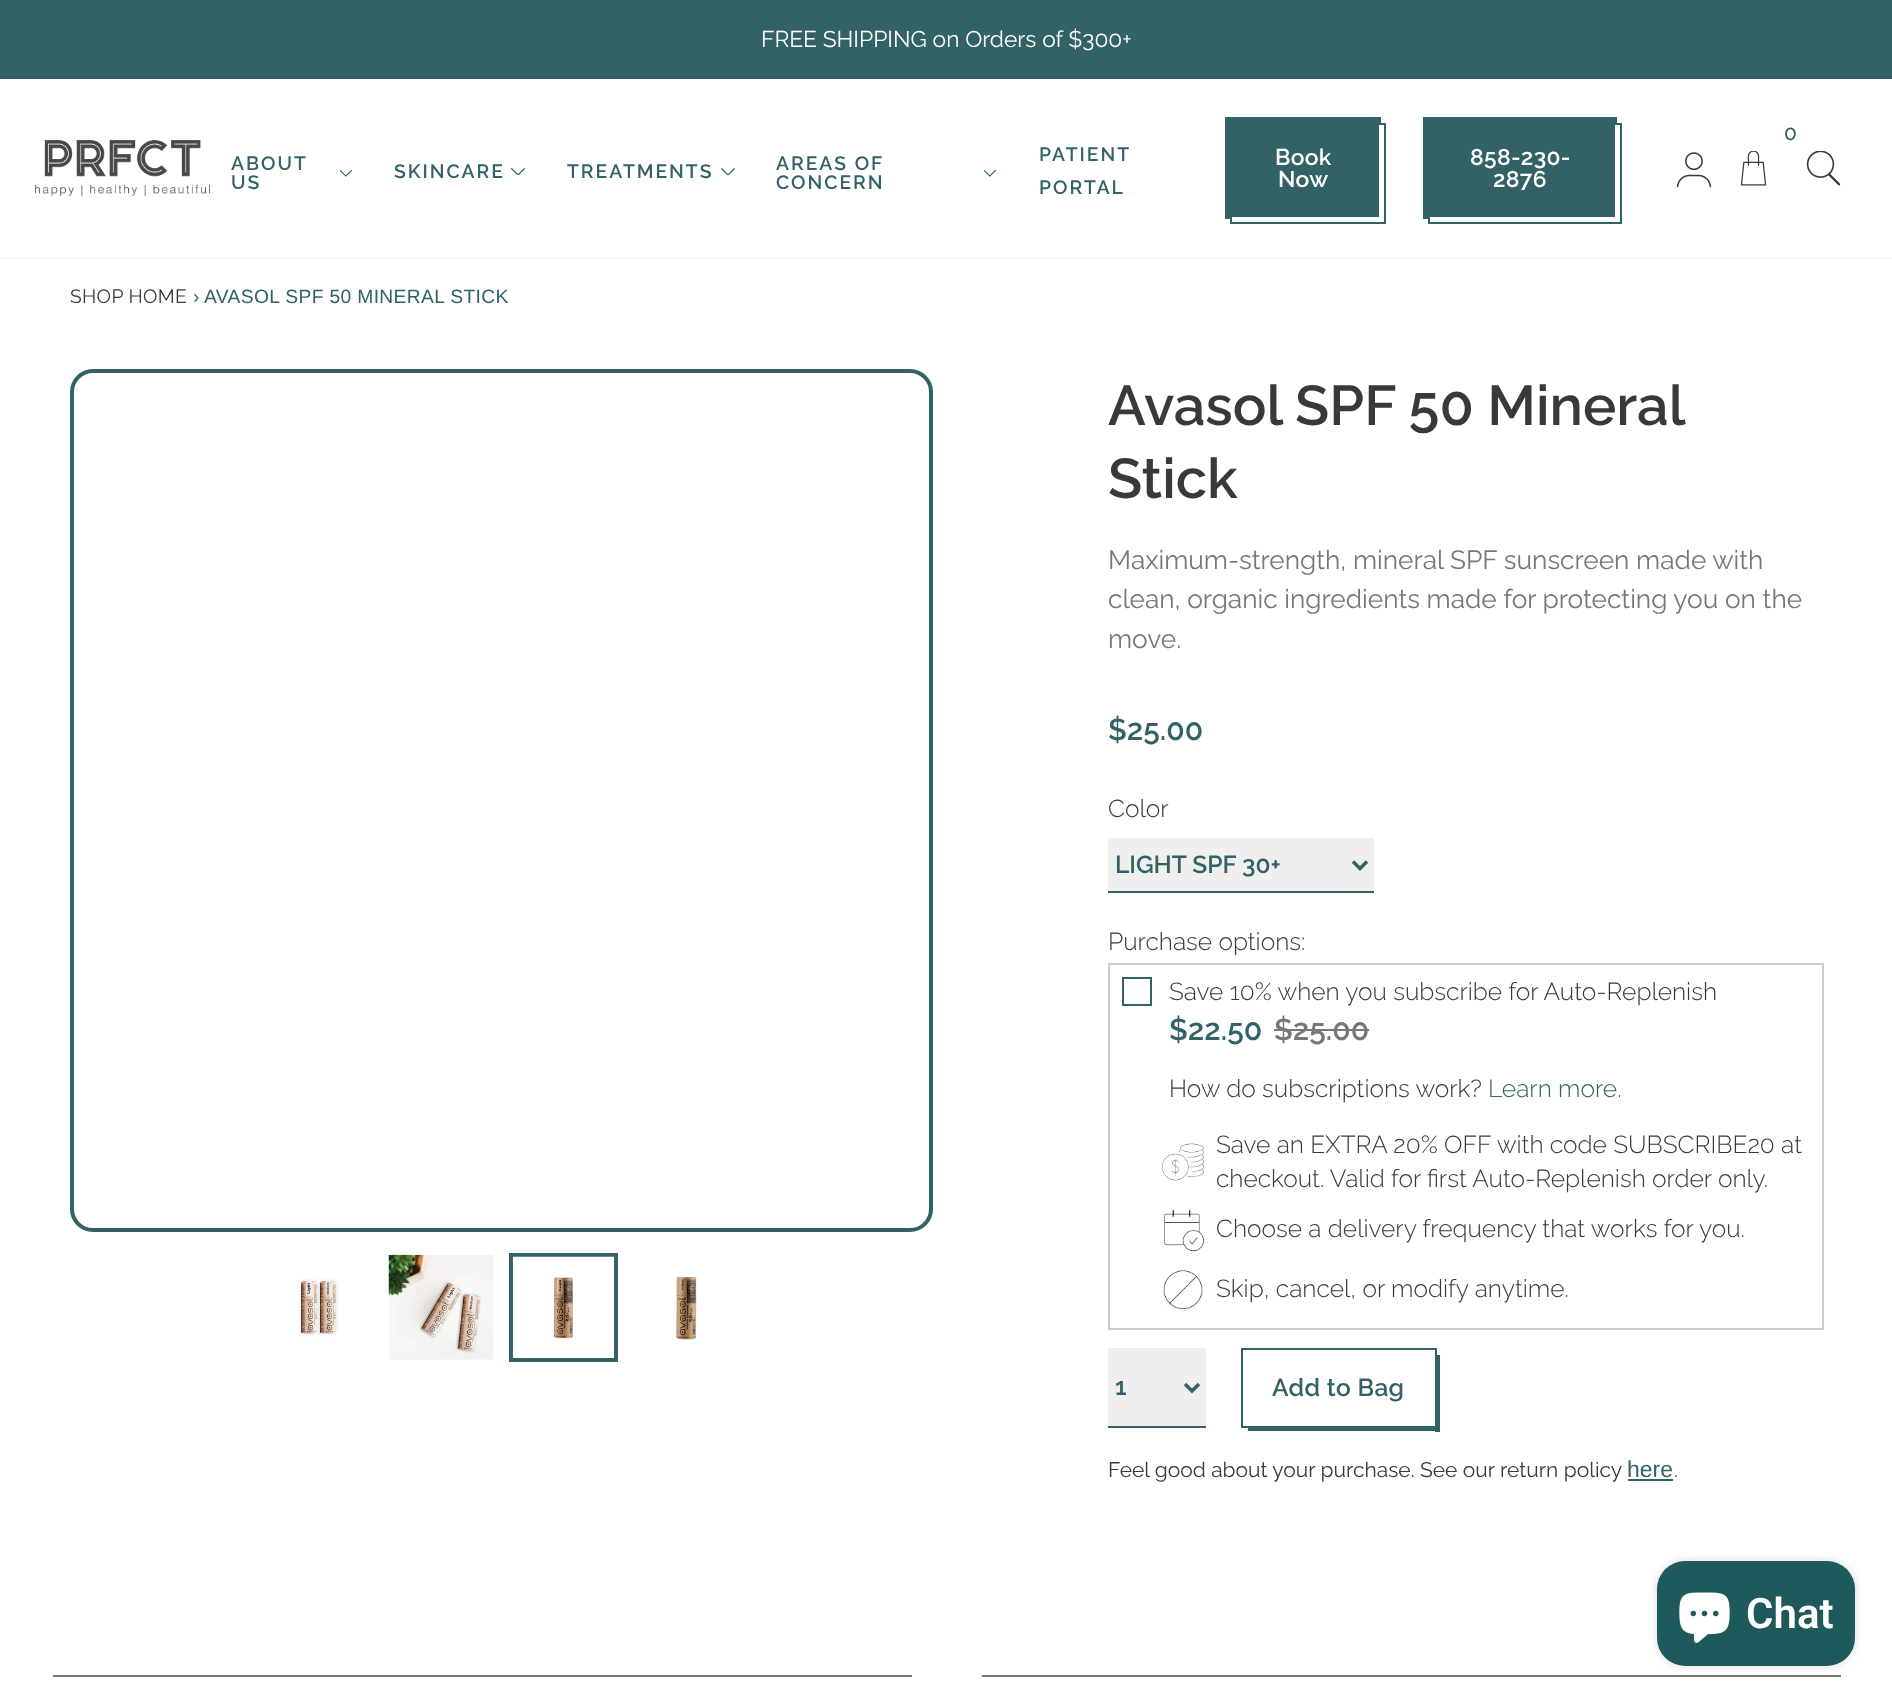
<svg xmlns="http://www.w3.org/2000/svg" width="1892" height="1702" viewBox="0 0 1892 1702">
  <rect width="100%" height="100%" fill="rgb(255,255,255)"/>
  <rect x="0" y="257" width="1892" height="2" fill="rgb(248,248,248)"/>
  <rect x="0" y="0" width="1892" height="79" fill="rgb(50,98,102)"/>
  <text x="761" y="47" font-family="Raleway" font-size="22.75" fill="rgb(255,255,255)">FREE SHIPPING on Orders of $300+</text>
  <text x="1784" y="140" font-family="Raleway" font-size="21" font-weight="500" fill="rgb(50,98,102)">0</text>
  <image x="1740" y="151" width="27" height="35" href="pic1.png"/>
  <image x="1677" y="152" width="35" height="35" href="pic2.png"/>
  <image x="1806" y="151" width="35" height="35" href="pic3.png"/>
  <image x="35" y="140" width="175" height="56" href="pic4.png"/>
  <text x="231" y="170" font-family="Raleway" font-size="19.25" font-weight="600" letter-spacing="2" fill="rgb(50,98,102)">ABOUT</text>
  <image x="340" y="170" width="12" height="7" href="pic5.png"/>
  <g font-family="Raleway" font-size="19.25" font-weight="600" letter-spacing="2" fill="rgb(50,98,102)">
    <text x="231" y="189">US</text>
    <text x="394" y="178">SKINCARE</text>
  </g>
  <image x="511" y="168" width="14" height="7" href="pic6.png"/>
  <text x="567" y="178" font-family="Raleway" font-size="19.25" font-weight="600" letter-spacing="2" fill="rgb(50,98,102)">TREATMENTS</text>
  <image x="721" y="168" width="14" height="7" href="pic6.png"/>
  <text x="776" y="170" font-family="Raleway" font-size="19.25" font-weight="600" letter-spacing="2" fill="rgb(50,98,102)">AREAS OF</text>
  <image x="984" y="170" width="12" height="7" href="pic7.png"/>
  <g font-family="Raleway" font-size="19.25" font-weight="600" letter-spacing="2" fill="rgb(50,98,102)">
    <text x="776" y="189">CONCERN</text>
    <text>
      <tspan x="1039" y="161">PATIENT</tspan>
      <tspan x="1039" y="194">PORTAL</tspan>
    </text>
  </g>
  <rect x="1225" y="117" width="156" height="102" fill="rgb(50,98,102)"/>
  <rect x="1379" y="124" width="2" height="98" fill="rgb(255,255,255)"/>
  <rect x="1232" y="217" width="152" height="2" fill="rgb(255,255,255)"/>
  <rect x="1231" y="124" width="154" height="99" fill="none" stroke="rgb(50,98,102)" stroke-width="2"/>
  <g font-family="Raleway" font-size="22.75" font-weight="600" letter-spacing="0.35" fill="rgb(255,255,255)">
    <text x="1275" y="165">Book</text>
    <text x="1278" y="187">Now</text>
  </g>
  <rect x="1423" y="117" width="194" height="102" fill="rgb(50,98,102)"/>
  <rect x="1615" y="124" width="2" height="98" fill="rgb(255,255,255)"/>
  <rect x="1430" y="217" width="191" height="2" fill="rgb(255,255,255)"/>
  <rect x="1429" y="124" width="192" height="99" fill="none" stroke="rgb(50,98,102)" stroke-width="2"/>
  <g font-family="Raleway" font-size="22.75" font-weight="600" letter-spacing="0.35" fill="rgb(255,255,255)">
    <text x="1470" y="165">858-230-</text>
    <text x="1493" y="187">2876</text>
  </g>
  <text x="70" y="303" font-family="Raleway" font-size="19.25" letter-spacing="0.35" fill="rgb(58,57,55)">SHOP HOME</text>
  <g font-family="Liberation Sans" font-size="19.25" letter-spacing="0.35" fill="rgb(50,98,102)">
    <text x="193" y="303">›</text>
    <text x="204" y="303">AVASOL SPF 50 MINERAL STICK</text>
  </g>
  <rect x="72" y="371" width="859" height="859" rx="21" fill="none" stroke="rgb(50,98,102)" stroke-width="4"/>
  <image x="298" y="1278" width="41" height="59" href="pic8.png"/>
  <image x="388" y="1254" width="106" height="106" href="pic9.png"/>
  <rect x="511" y="1255" width="105" height="105" fill="none" stroke="rgb(50,98,102)" stroke-width="4"/>
  <image x="512" y="1256" width="103" height="102" href="pic10.png"/>
  <image x="676" y="1274" width="22" height="67" href="pic11.png"/>
  <g font-family="Raleway" font-size="56" font-weight="600" fill="rgb(58,57,55)">
    <text>
      <tspan x="1108" y="425" word-spacing="-0.5">Avasol SPF 50 Mineral</tspan>
      <tspan x="1108" y="498">Stick</tspan>
    </text>
  </g>
  <g font-family="Raleway" font-size="26.25" fill="rgb(119,119,119)">
    <text>
      <tspan x="1108" y="569">Maximum-strength, mineral SPF sunscreen made with</tspan>
      <tspan x="1108" y="608">clean, organic ingredients made for protecting you on the</tspan>
      <tspan x="1108" y="648">move.</tspan>
    </text>
  </g>
  <text x="1108" y="740" font-family="Raleway" font-size="30" font-weight="600" fill="rgb(50,98,102)">$25.00</text>
  <text x="1108" y="817" font-family="Raleway" font-size="24.5" font-weight="300" fill="rgb(58,57,55)">Color</text>
  <rect x="1108" y="838" width="266" height="53" fill="rgb(239,239,239)"/>
  <rect x="1108" y="891" width="266" height="2" fill="rgb(50,98,102)"/>
  <path d="M1353 861.5L1360 868.5L1367 861.5" fill="none" stroke="rgb(50,98,102)" stroke-width="3.5"/>
  <text x="1115" y="873" font-family="Raleway" font-size="24.5" font-weight="600" fill="rgb(50,98,102)">LIGHT SPF 30+</text>
  <text x="1108" y="950" font-family="Raleway" font-size="24.5" font-weight="300" fill="rgb(58,57,55)">Purchase options:</text>
  <rect x="1109" y="964" width="714" height="365" fill="none" stroke="rgb(204,204,204)" stroke-width="2"/>
  <rect x="1123" y="978" width="28" height="27" fill="none" stroke="rgb(50,98,102)" stroke-width="2"/>
  <text x="1169" y="1000" font-family="Raleway" font-size="24.5" font-weight="300" fill="rgb(58,57,55)">Save 10% when you subscribe for Auto-Replenish</text>
  <text x="1169" y="1040" font-family="Raleway" font-size="30" font-weight="600" fill="rgb(50,98,102)">$22.50</text>
  <text x="1274" y="1040" font-family="Raleway" font-size="30" font-weight="600" fill="rgb(119,119,119)">$25.00</text>
  <rect x="1274" y="1029" width="95" height="2" fill="rgb(119,119,119)"/>
  <text x="1169" y="1097" font-family="Raleway" font-size="24.5" font-weight="300" fill="rgb(58,57,55)">How do subscriptions work?</text>
  <text x="1488" y="1097" font-family="Raleway" font-size="24.5" font-weight="300" fill="rgb(50,98,102)">Learn more.</text>
  <image x="1161" y="1143" width="43" height="38" href="pic12.png"/>
  <g font-family="Raleway" font-size="24.5" font-weight="300" fill="rgb(58,57,55)">
    <text>
      <tspan x="1216" y="1153">Save an EXTRA 20% OFF with code SUBSCRIBE20 at</tspan>
      <tspan x="1216" y="1187">checkout. Valid for first Auto-Replenish order only.</tspan>
    </text>
  </g>
  <image x="1164" y="1209" width="41" height="43" href="pic13.png"/>
  <text x="1216" y="1237" font-family="Raleway" font-size="24.5" font-weight="300" fill="rgb(58,57,55)">Choose a delivery frequency that works for you.</text>
  <image x="1163" y="1270" width="40" height="42" href="pic14.png"/>
  <text x="1216" y="1297" font-family="Raleway" font-size="24.5" font-weight="300" fill="rgb(58,57,55)">Skip, cancel, or modify anytime.</text>
  <rect x="1108" y="1348" width="98" height="78" fill="rgb(239,239,239)"/>
  <rect x="1108" y="1426" width="98" height="2" fill="rgb(50,98,102)"/>
  <path d="M1185 1384L1192 1391L1199 1384" fill="none" stroke="rgb(50,98,102)" stroke-width="3.5"/>
  <text x="1115" y="1395" font-family="Raleway" font-size="24.5" font-weight="600" fill="rgb(50,98,102)">1</text>
  <rect x="1242" y="1349" width="194" height="78" fill="none" stroke="rgb(50,98,102)" stroke-width="2"/>
  <rect x="1435" y="1355" width="5" height="77" fill="rgb(50,98,102)"/>
  <rect x="1248" y="1428" width="192" height="3" fill="rgb(50,98,102)"/>
  <text x="1272" y="1396" font-family="Raleway" font-size="24.5" font-weight="600" letter-spacing="0.35" fill="rgb(50,98,102)">Add to Bag</text>
  <text x="1108" y="1477" font-family="Raleway" font-size="21" fill="rgb(58,57,55)">Feel good about your purchase. See our return policy</text>
  <text x="1627" y="1477" font-family="Liberation Sans" font-size="23" fill="rgb(50,98,102)">here</text>
  <rect x="1628" y="1479" width="45" height="2" fill="rgb(50,98,102)"/>
  <text x="1674" y="1477" font-family="Raleway" font-size="21" fill="rgb(58,57,55)">.</text>
  <rect x="53" y="1675" width="859" height="2" fill="rgb(119,119,119)"/>
  <rect x="982" y="1675" width="859" height="2" fill="rgb(119,119,119)"/>
  <rect x="1657" y="1561" width="198" height="105" rx="28" fill="rgba(0,0,0,0.15)" filter="blur(4.5px)"/>
  <rect x="1657" y="1561" width="198" height="105" rx="28" fill="rgb(30,89,92)"/>
  <image x="1679" y="1592" width="51" height="51" href="pic15.png"/>
  <text x="1746" y="1628" font-family="Roboto" font-size="42" font-weight="600" fill="rgb(255,255,255)">Chat</text>
</svg>
